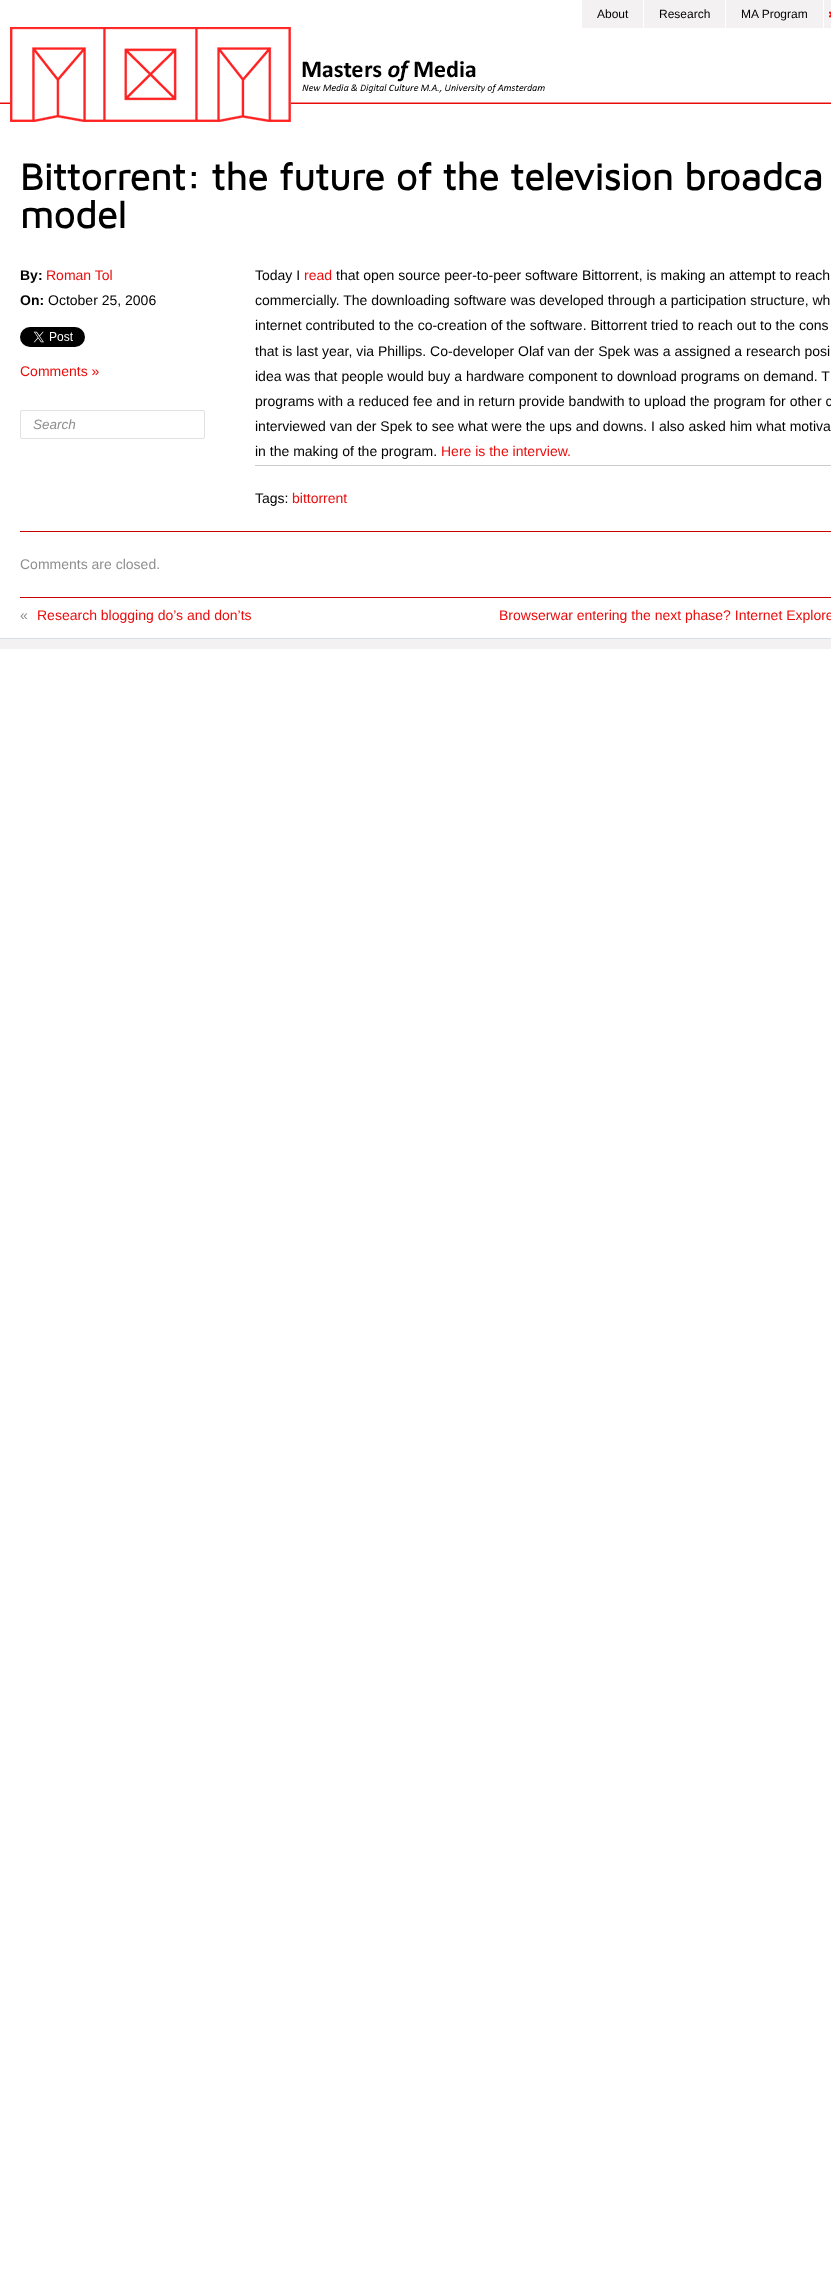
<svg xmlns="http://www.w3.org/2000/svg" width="831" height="2277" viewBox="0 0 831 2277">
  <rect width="100%" height="100%" fill="rgb(255,255,255)"/>
  <rect x="582" y="0" width="61" height="28" fill="rgb(243,241,241)"/>
  <text x="597" y="18" font-family="Liberation Sans" font-size="12" fill="rgb(0,0,0)">About</text>
  <rect x="644" y="0" width="81" height="28" fill="rgb(243,241,241)"/>
  <text x="659" y="18" font-family="Liberation Sans" font-size="12" fill="rgb(0,0,0)">Research</text>
  <rect x="726" y="0" width="97" height="28" fill="rgb(243,241,241)"/>
  <text x="741" y="18" font-family="Liberation Sans" font-size="12" fill="rgb(0,0,0)">MA Program</text>
  <rect x="824" y="0" width="7" height="28" fill="rgb(243,241,241)"/>
  <image x="829" y="11" width="2" height="7" href="pic1.png"/>
  <image x="0" y="102" width="831" height="2" href="pic2.png"/>
  <image x="10" y="27" width="535" height="95" href="pic3.png"/>
  <g font-family="Maven Pro" font-size="38" font-weight="bold" fill="rgb(0,0,0)">
    <text>
      <tspan x="20" y="190">Bittorrent: the future of the television broadca</tspan>
      <tspan x="20" y="228">model</tspan>
    </text>
  </g>
  <text x="20" y="280" font-family="Liberation Sans" font-size="14" font-weight="bold" fill="rgb(0,0,0)">By:</text>
  <text x="46" y="280" font-family="Liberation Sans" font-size="14" fill="rgb(234,11,11)">Roman Tol</text>
  <text x="20" y="305" font-family="Liberation Sans" font-size="14" font-weight="bold" fill="rgb(0,0,0)">On:</text>
  <text x="48" y="305" font-family="Liberation Sans" font-size="14" fill="rgb(0,0,0)">October 25, 2006</text>
  <image x="20" y="327" width="65" height="20" href="pic4.png"/>
  <text x="20" y="376" font-family="Liberation Sans" font-size="14" fill="rgb(234,11,11)">Comments »</text>
  <rect x="20.5" y="410.5" width="184" height="28" rx="1.5" fill="none" stroke="rgb(226,224,224)"/>
  <text x="33" y="429" font-family="Liberation Sans" font-size="13.5" font-style="italic" fill="rgb(143,143,143)">Search</text>
  <text x="255" y="280" font-family="Liberation Sans" font-size="14" fill="rgb(0,0,0)">Today I</text>
  <text x="304" y="280" font-family="Liberation Sans" font-size="14" fill="rgb(234,11,11)">read</text>
  <g font-family="Liberation Sans" font-size="14" fill="rgb(0,0,0)">
    <text x="336" y="280">that open source peer-to-peer software Bittorrent, is making an attempt to reach</text>
    <text>
      <tspan x="255" y="305">commercially. The downloading software was developed through a participation structure, wh</tspan>
      <tspan x="255" y="330">internet contributed to the co-creation of the software. Bittorrent tried to reach out to the cons</tspan>
      <tspan x="255" y="356">that is last year, via Phillips. Co-developer Olaf van der Spek was a assigned a research posi</tspan>
      <tspan x="255" y="381">idea was that people would buy a hardware component to download programs on demand. T</tspan>
      <tspan x="255" y="406">programs with a reduced fee and in return provide bandwith to upload the program for other c</tspan>
      <tspan x="255" y="431">interviewed van der Spek to see what were the ups and downs. I also asked him what motiva</tspan>
      <tspan x="255" y="456">in the making of the program.</tspan>
    </text>
  </g>
  <text x="441" y="456" font-family="Liberation Sans" font-size="14" fill="rgb(234,11,11)">Here is the interview.</text>
  <rect x="255" y="465" width="576" height="1" fill="rgb(204,204,204)"/>
  <text x="255" y="503" font-family="Liberation Sans" font-size="14" fill="rgb(0,0,0)">Tags:</text>
  <text x="292" y="503" font-family="Liberation Sans" font-size="14" fill="rgb(234,11,11)">bittorrent</text>
  <rect x="20" y="531" width="811" height="1" fill="rgb(204,0,0)"/>
  <text x="20" y="569" font-family="Liberation Sans" font-size="14" fill="rgb(143,143,143)">Comments are closed.</text>
  <rect x="20" y="597" width="811" height="1" fill="rgb(204,0,0)"/>
  <text x="20" y="620" font-family="Liberation Sans" font-size="14" fill="rgb(143,143,143)">«</text>
  <g font-family="Liberation Sans" font-size="14" fill="rgb(234,11,11)">
    <text x="37" y="620">Research blogging do’s and don’ts</text>
    <text x="499" y="620">Browserwar entering the next phase? Internet Explore</text>
  </g>
  <rect x="0" y="639" width="831" height="10" fill="rgb(243,241,241)"/>
  <rect x="0" y="638" width="831" height="1" fill="rgb(212,222,229)"/>
</svg>
